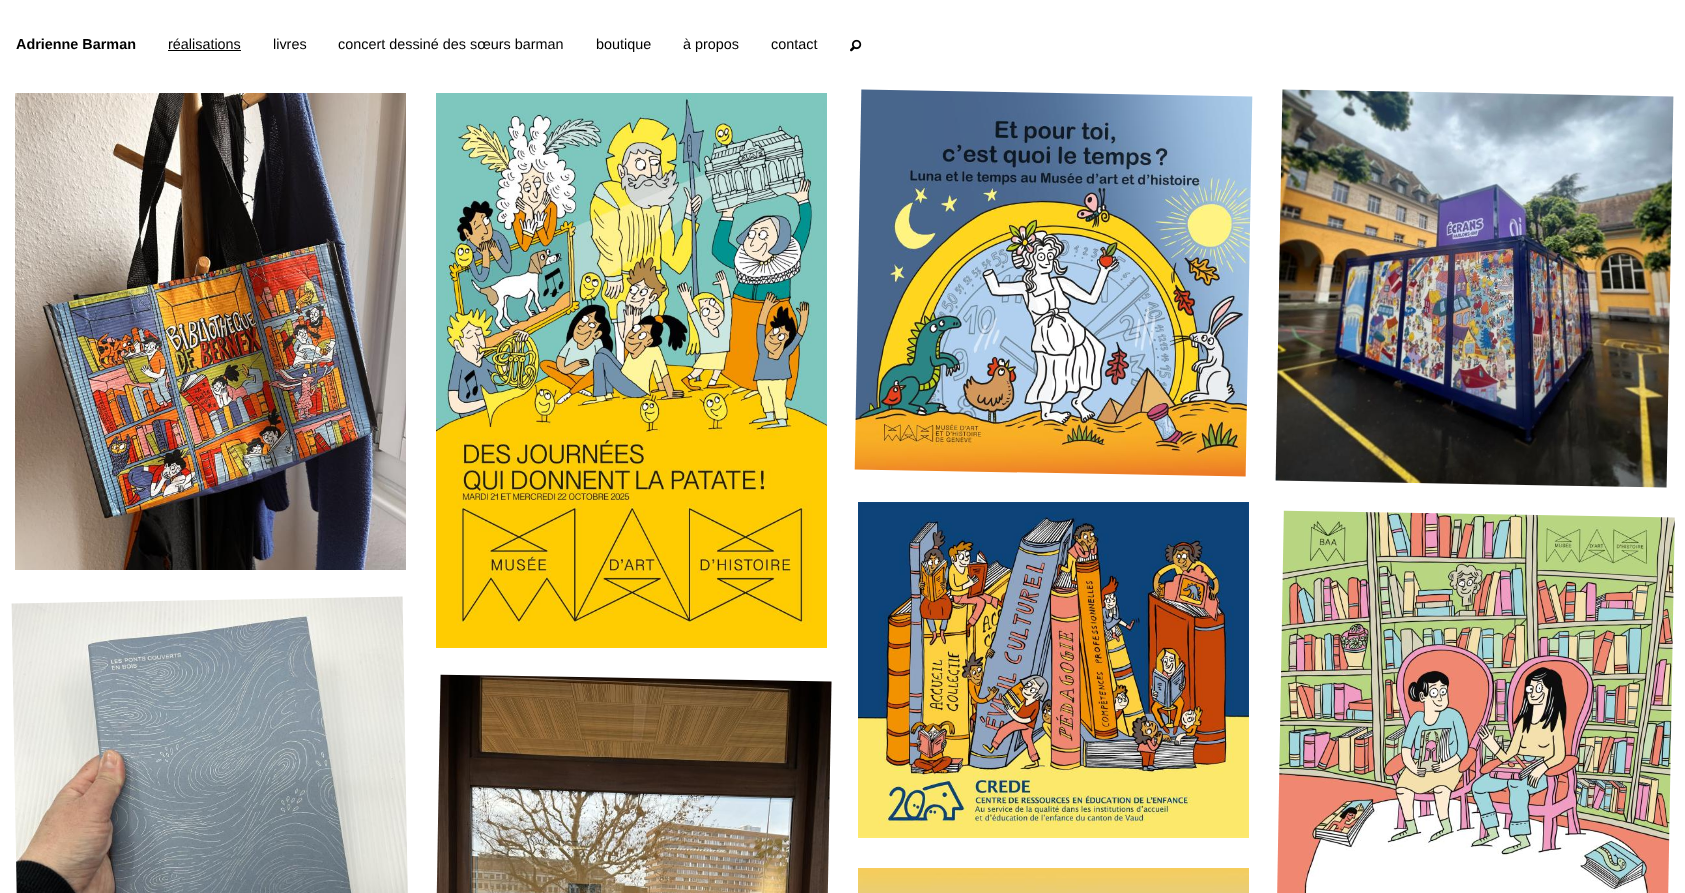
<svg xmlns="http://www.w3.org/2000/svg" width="1685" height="893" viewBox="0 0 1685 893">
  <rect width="100%" height="100%" fill="rgb(255,255,255)"/>
  <text x="16" y="49" font-family="Liberation Sans" font-size="14.4" font-weight="bold" fill="rgb(0,0,0)">Adrienne Barman</text>
  <text x="168" y="49" font-family="Liberation Sans" font-size="14.4" fill="rgb(0,0,0)">réalisations</text>
  <rect x="168" y="50" width="73" height="1" fill="rgb(0,0,0)"/>
  <g font-family="Liberation Sans" font-size="14.4" fill="rgb(0,0,0)">
    <text x="273" y="49">livres</text>
    <text x="338" y="49">concert dessiné des sœurs barman</text>
    <text x="596" y="49">boutique</text>
    <text x="683" y="49">à propos</text>
    <text x="771" y="49">contact</text>
  </g>
  <image x="850" y="39" width="12" height="13" href="pic1.png"/>
  <image x="15" y="93" width="391" height="477" href="pic2.png"/>
  <image x="436" y="93" width="391" height="555" href="pic3.png"/>
  <image x="854" y="89" width="399" height="388" href="pic4.png"/>
  <image x="1275" y="89" width="399" height="399" href="pic5.png"/>
  <image x="11" y="596" width="397" height="297" href="pic6.png"/>
  <image x="436" y="674" width="396" height="219" href="pic7.png"/>
  <image x="858" y="502" width="391" height="336" href="pic8.png"/>
  <image x="1277" y="510" width="398" height="383" href="pic9.png"/>
  <image x="858" y="868" width="391" height="25" href="pic10.png"/>
</svg>
